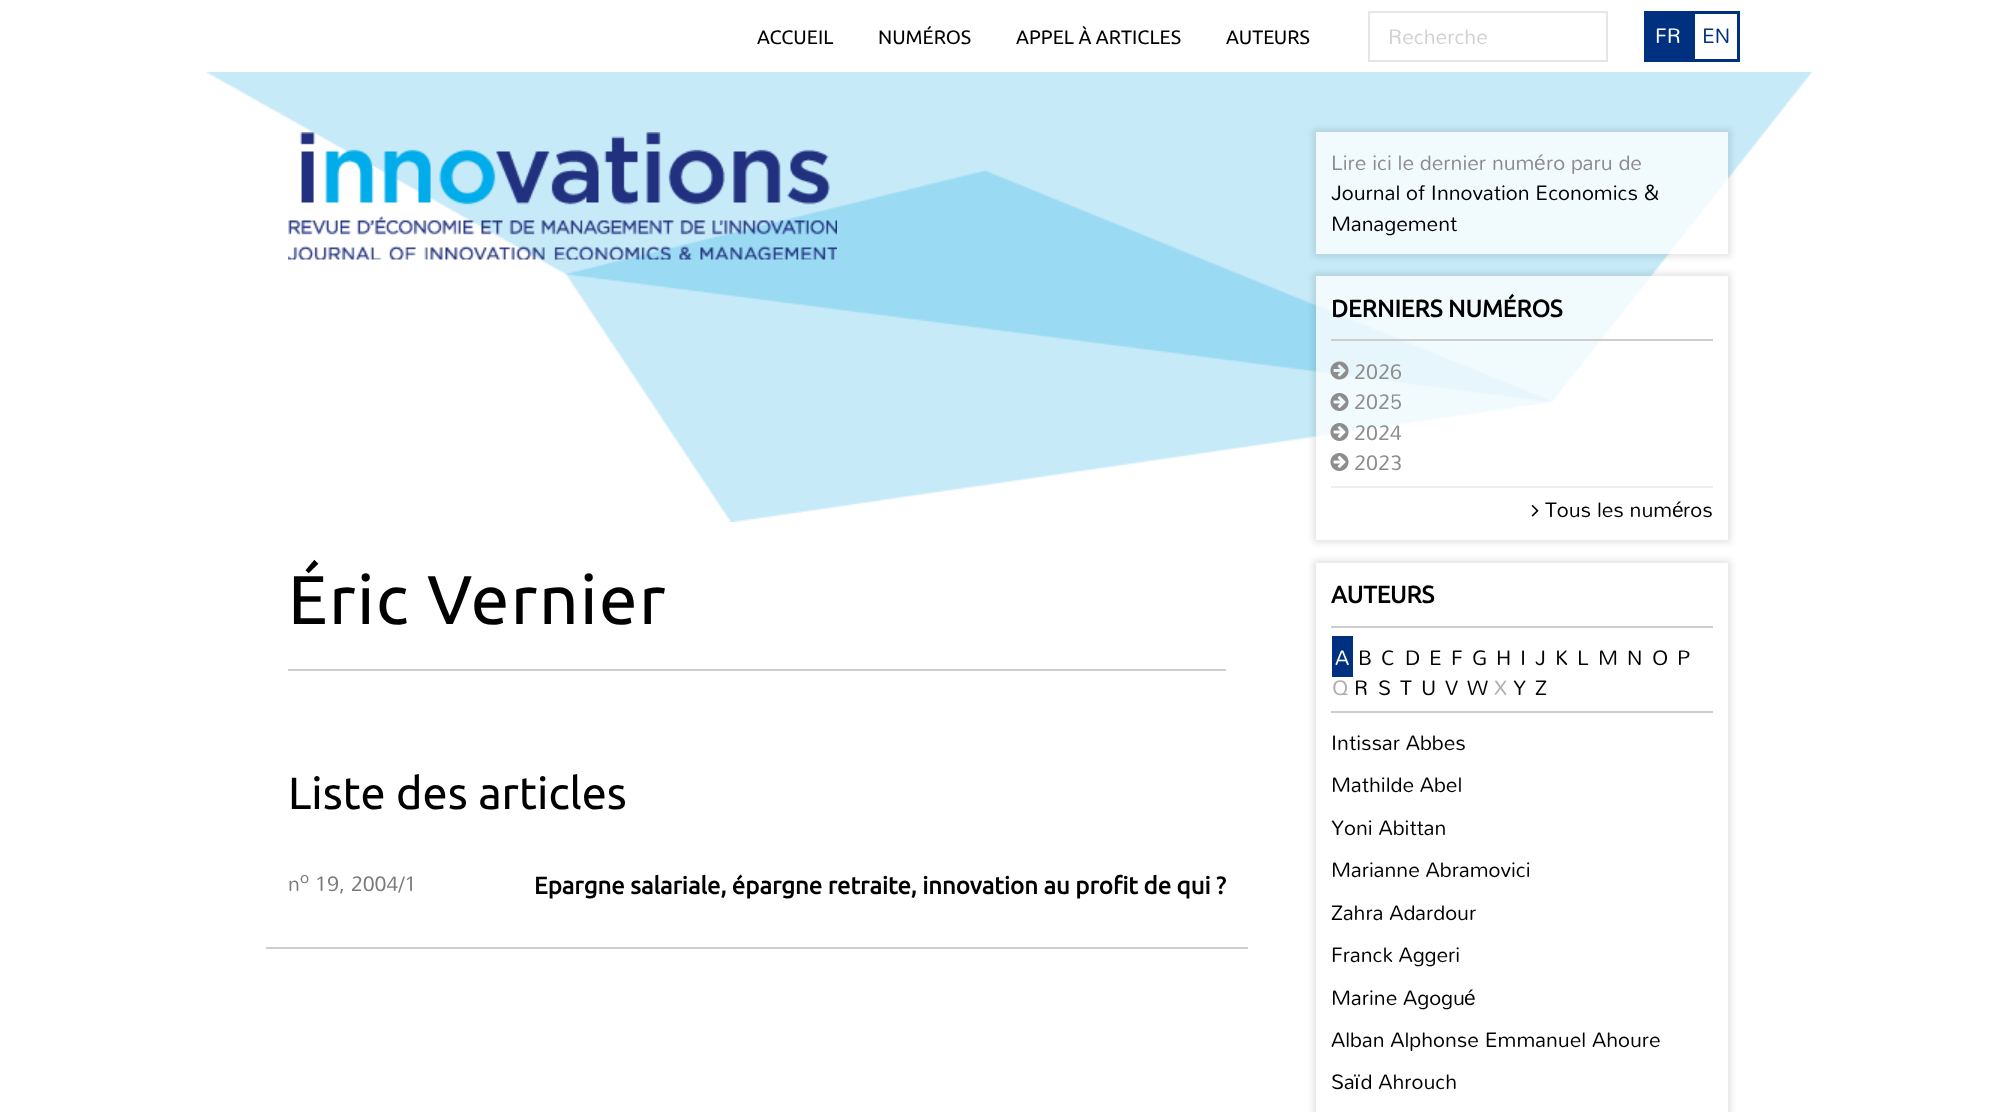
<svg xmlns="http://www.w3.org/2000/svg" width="2015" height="1112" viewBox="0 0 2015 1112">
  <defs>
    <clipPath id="clip1"><path d="M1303 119H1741V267H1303ZM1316 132H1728V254H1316Z" clip-rule="evenodd"/></clipPath>
    <clipPath id="clip2"><path d="M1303 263H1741V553H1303ZM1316 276H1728V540H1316Z" clip-rule="evenodd"/></clipPath>
    <clipPath id="clip3"><path d="M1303 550H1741V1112H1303ZM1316 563H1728V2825H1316Z" clip-rule="evenodd"/></clipPath>
  </defs>
  <rect width="100%" height="100%" fill="rgb(255,255,255)"/>
  <g font-family="Ubuntu" font-size="19.5" fill="rgb(0,0,0)">
    <text x="757" y="44">ACCUEIL</text>
    <text x="878" y="44">NUMÉROS</text>
    <text x="1016" y="44">APPEL À ARTICLES</text>
    <text x="1226" y="44">AUTEURS</text>
  </g>
  <rect x="1369" y="12" width="238" height="49" fill="none" stroke="rgb(230,230,230)" stroke-width="2"/>
  <text x="1388" y="44" font-family="Mandali" font-size="21" fill="rgb(209,209,209)">Recherche</text>
  <rect x="1644" y="11" width="48" height="51" fill="rgb(0,49,129)"/>
  <text x="1655" y="43" font-family="Mandali" font-size="21" fill="rgb(255,255,255)">FR</text>
  <rect x="1693.5" y="12.5" width="45" height="48" fill="none" stroke="rgb(0,49,129)" stroke-width="3"/>
  <text x="1702" y="43" font-family="Mandali" font-size="21" fill="rgb(0,49,129)">EN</text>
  <image x="206" y="72" width="1606" height="450" href="pic1.png"/>
  <image x="288" y="132" width="549" height="128" href="pic2.png"/>
  <rect x="288" y="669" width="938" height="2" fill="rgb(205,205,205)"/>
  <text x="288" y="624" font-family="Ubuntu" font-size="69" letter-spacing="1.5" fill="rgb(0,0,0)">Éric Vernier</text>
  <text x="288" y="809" font-family="Ubuntu" font-size="45" fill="rgb(0,0,0)">Liste des articles</text>
  <rect x="266" y="947" width="982" height="2" fill="rgb(205,205,205)"/>
  <text x="288" y="891" font-family="Mandali" font-size="21" fill="rgb(123,123,122)">n</text>
  <text x="300" y="883" font-family="Mandali" font-size="16" fill="rgb(123,123,122)">o</text>
  <text x="315" y="891" font-family="Mandali" font-size="21" fill="rgb(123,123,122)">19, 2004/1</text>
  <text x="534" y="894" font-family="Ubuntu" font-size="24" font-weight="bold" fill="rgb(0,0,0)">Epargne salariale, épargne retraite, innovation au profit de qui ?</text>
  <g clip-path="url(#clip1)">
    <rect x="1313" y="129" width="418" height="128" fill="rgba(0,0,0,0.1)" filter="blur(3px)"/>
  </g>
  <rect x="1316" y="132" width="412" height="122" fill="rgba(255,255,255,0.75)"/>
  <text x="1331" y="170" font-family="Mandali" font-size="21" fill="rgb(141,141,141)">Lire ici le dernier num</text>
  <text x="1534" y="170" font-family="Liberation Sans" font-size="21" fill="rgb(141,141,141)">é</text>
  <text x="1546" y="170" font-family="Mandali" font-size="21" fill="rgb(141,141,141)">ro paru de</text>
  <g font-family="Mandali" font-size="21" fill="rgb(0,0,0)">
    <text>
      <tspan x="1331" y="200">Journal of Innovation Economics &amp;</tspan>
      <tspan x="1331" y="231">Management</tspan>
    </text>
  </g>
  <g clip-path="url(#clip2)">
    <rect x="1313" y="273" width="418" height="270" fill="rgba(0,0,0,0.1)" filter="blur(3px)"/>
  </g>
  <rect x="1316" y="276" width="336" height="161" fill="rgba(255,255,255,0.75)"/>
  <rect x="1331" y="339" width="382" height="2" fill="rgb(205,205,205)"/>
  <text x="1331" y="317" font-family="Ubuntu" font-size="24" font-weight="bold" fill="rgb(0,0,0)">DERNIERS NUMÉROS</text>
  <image x="1330" y="361" width="19" height="19" href="pic3.png"/>
  <text x="1354" y="379" font-family="Mandali" font-size="21" fill="rgb(141,141,141)">2026</text>
  <image x="1330" y="393" width="19" height="18" href="pic4.png"/>
  <text x="1354" y="409" font-family="Mandali" font-size="21" fill="rgb(141,141,141)">2025</text>
  <image x="1330" y="423" width="19" height="18" href="pic5.png"/>
  <text x="1354" y="440" font-family="Mandali" font-size="21" fill="rgb(141,141,141)">2024</text>
  <image x="1330" y="453" width="19" height="18" href="pic6.png"/>
  <text x="1354" y="470" font-family="Mandali" font-size="21" fill="rgb(141,141,141)">2023</text>
  <rect x="1331" y="486" width="382" height="2" fill="rgb(238,238,238)"/>
  <image x="1531" y="505" width="8" height="12" href="pic7.png"/>
  <text x="1545" y="517" font-family="Mandali" font-size="21" fill="rgb(0,0,0)">Tous les num</text>
  <text x="1672" y="517" font-family="Liberation Sans" font-size="21" fill="rgb(0,0,0)">é</text>
  <text x="1683" y="517" font-family="Mandali" font-size="21" fill="rgb(0,0,0)">ros</text>
  <g clip-path="url(#clip3)">
    <rect x="1313" y="560" width="418" height="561" fill="rgba(0,0,0,0.1)" filter="blur(3px)"/>
  </g>
  <rect x="1331" y="626" width="382" height="2" fill="rgb(205,205,205)"/>
  <text x="1331" y="603" font-family="Ubuntu" font-size="24" font-weight="bold" fill="rgb(0,0,0)">AUTEURS</text>
  <rect x="1331" y="711" width="382" height="2" fill="rgb(205,205,205)"/>
  <rect x="1332" y="636" width="21" height="41" fill="rgb(0,49,129)"/>
  <text x="1335" y="665" font-family="Mandali" font-size="21" fill="rgb(255,255,255)">A</text>
  <g font-family="Mandali" font-size="21" fill="rgb(0,0,0)">
    <text x="1358" y="665">B</text>
    <text x="1381" y="665">C</text>
    <text x="1405" y="665">D</text>
    <text x="1429" y="665">E</text>
    <text x="1451" y="665">F</text>
    <text x="1472" y="665">G</text>
    <text x="1496" y="665">H</text>
    <text x="1520" y="665">I</text>
    <text x="1535" y="665">J</text>
    <text x="1555" y="665">K</text>
    <text x="1577" y="665">L</text>
    <text x="1598" y="665">M</text>
    <text x="1627" y="665">N</text>
    <text x="1652" y="665">O</text>
    <text x="1677" y="665">P</text>
  </g>
  <text x="1332" y="695" font-family="Mandali" font-size="21" fill="rgb(175,175,175)">Q</text>
  <g font-family="Mandali" font-size="21" fill="rgb(0,0,0)">
    <text x="1354" y="695">R</text>
    <text x="1378" y="695">S</text>
    <text x="1400" y="695">T</text>
    <text x="1421" y="695">U</text>
    <text x="1445" y="695">V</text>
    <text x="1467" y="695">W</text>
  </g>
  <text x="1494" y="695" font-family="Mandali" font-size="21" fill="rgb(175,175,175)">X</text>
  <g font-family="Mandali" font-size="21" fill="rgb(0,0,0)">
    <text x="1513" y="695">Y</text>
    <text x="1535" y="695">Z</text>
    <text x="1331" y="750">Intissar Abbes</text>
    <text x="1331" y="792">Mathilde Abel</text>
    <text x="1331" y="835">Yoni Abittan</text>
    <text x="1331" y="877">Marianne Abramovici</text>
    <text x="1331" y="920">Zahra Adardour</text>
    <text x="1331" y="962">Franck Aggeri</text>
    <text x="1331" y="1005">Marine Agogu</text>
  </g>
  <text x="1464" y="1005" font-family="Liberation Sans" font-size="21" fill="rgb(0,0,0)">é</text>
  <g font-family="Mandali" font-size="21" fill="rgb(0,0,0)">
    <text x="1331" y="1047">Alban Alphonse Emmanuel Ahoure</text>
    <text x="1331" y="1089">Sa d Ahrouch</text>
  </g>
  <text x="1354" y="1089" font-family="Liberation Sans" font-size="21" fill="rgb(0,0,0)">ï</text>
</svg>
